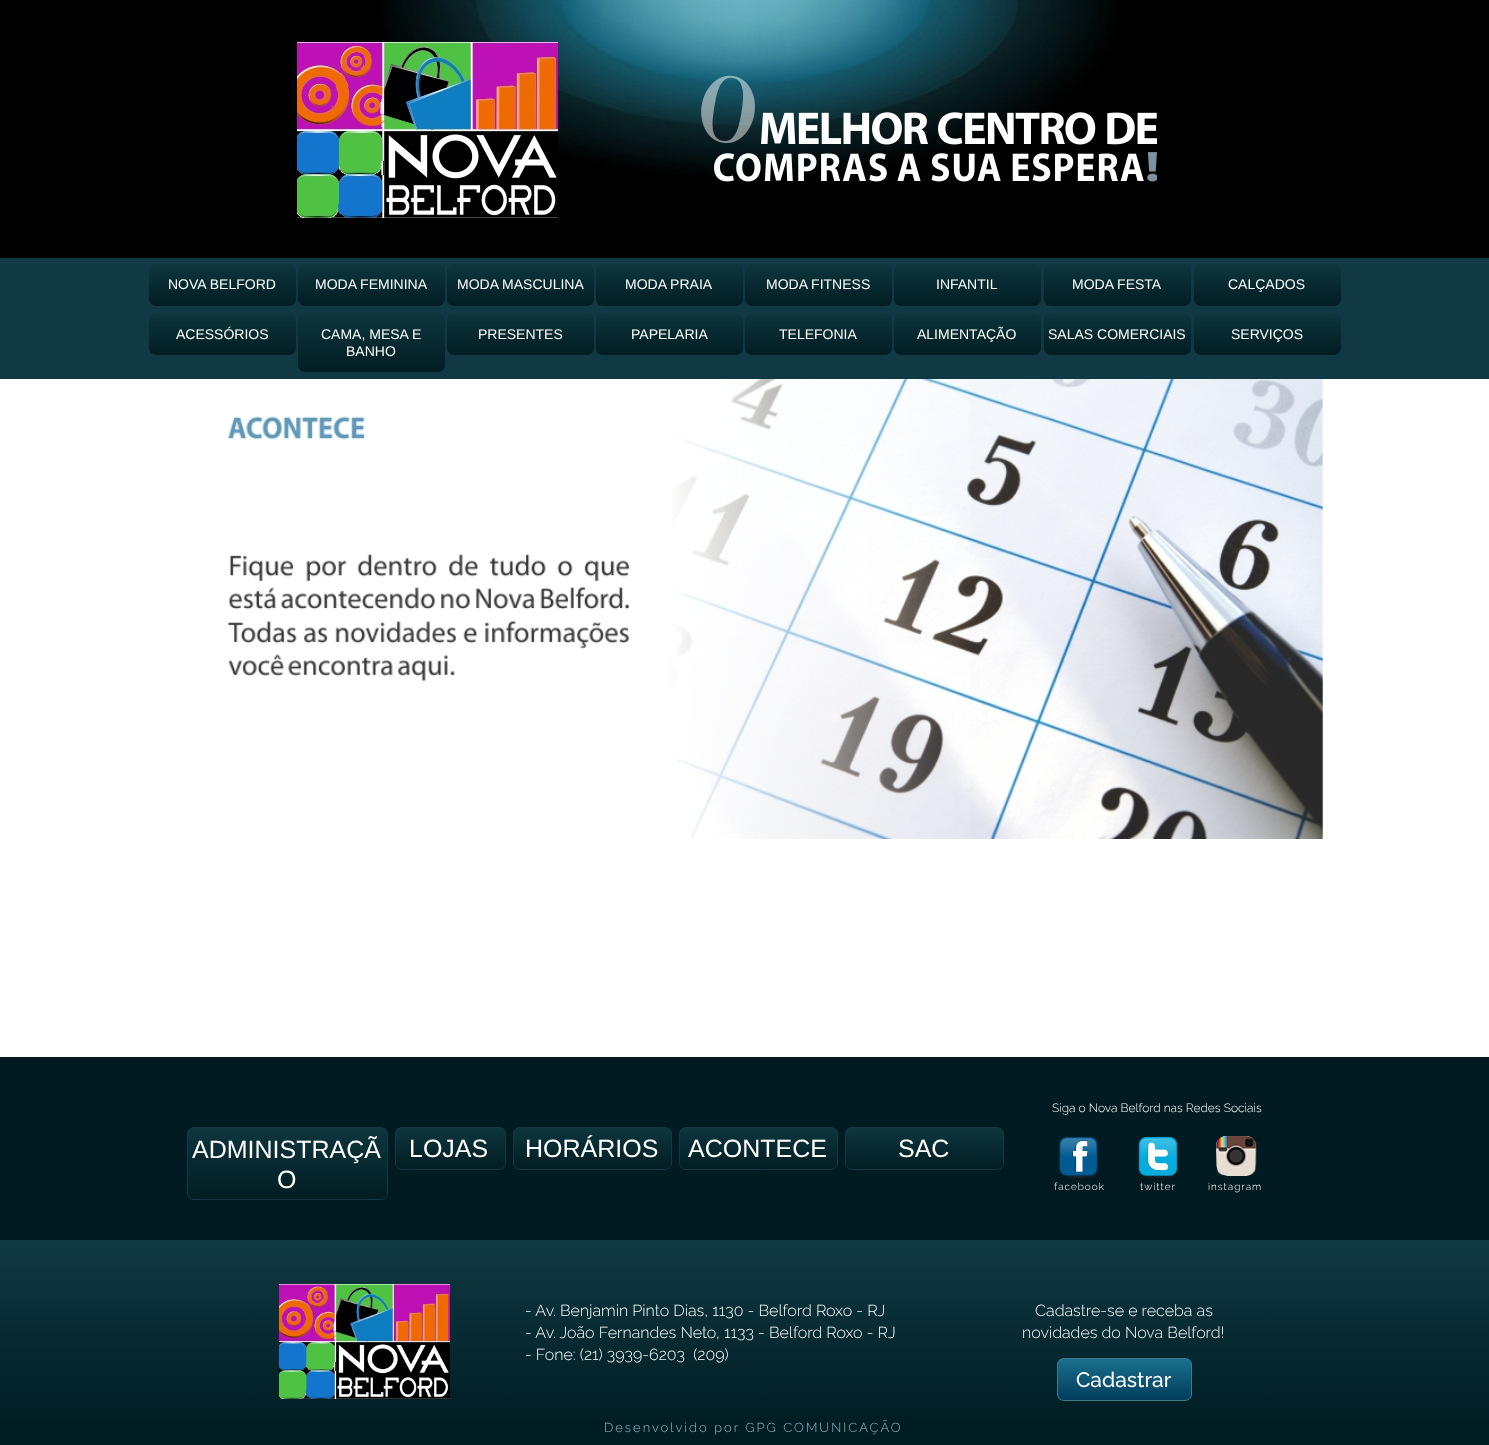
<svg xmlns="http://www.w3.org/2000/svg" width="1489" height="1445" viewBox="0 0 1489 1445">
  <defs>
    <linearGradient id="g1" gradientUnits="userSpaceOnUse" x1="223" y1="264" x2="223" y2="306"><stop offset="0" stop-color="rgb(13,54,61)"/><stop offset="1" stop-color="rgb(2,29,35)"/></linearGradient>
    <linearGradient id="g2" gradientUnits="userSpaceOnUse" x1="223" y1="313" x2="223" y2="355"><stop offset="0" stop-color="rgb(13,54,61)"/><stop offset="1" stop-color="rgb(2,29,35)"/></linearGradient>
    <linearGradient id="g3" gradientUnits="userSpaceOnUse" x1="372" y1="264" x2="372" y2="306"><stop offset="0" stop-color="rgb(13,54,61)"/><stop offset="1" stop-color="rgb(2,29,35)"/></linearGradient>
    <linearGradient id="g4" gradientUnits="userSpaceOnUse" x1="372" y1="313" x2="372" y2="372"><stop offset="0" stop-color="rgb(13,54,61)"/><stop offset="1" stop-color="rgb(2,29,35)"/></linearGradient>
    <linearGradient id="g5" gradientUnits="userSpaceOnUse" x1="521" y1="264" x2="521" y2="306"><stop offset="0" stop-color="rgb(13,54,61)"/><stop offset="1" stop-color="rgb(2,29,35)"/></linearGradient>
    <linearGradient id="g6" gradientUnits="userSpaceOnUse" x1="521" y1="313" x2="521" y2="355"><stop offset="0" stop-color="rgb(13,54,61)"/><stop offset="1" stop-color="rgb(2,29,35)"/></linearGradient>
    <linearGradient id="g7" gradientUnits="userSpaceOnUse" x1="670" y1="264" x2="670" y2="306"><stop offset="0" stop-color="rgb(13,54,61)"/><stop offset="1" stop-color="rgb(2,29,35)"/></linearGradient>
    <linearGradient id="g8" gradientUnits="userSpaceOnUse" x1="670" y1="313" x2="670" y2="355"><stop offset="0" stop-color="rgb(13,54,61)"/><stop offset="1" stop-color="rgb(2,29,35)"/></linearGradient>
    <linearGradient id="g9" gradientUnits="userSpaceOnUse" x1="819" y1="264" x2="819" y2="306"><stop offset="0" stop-color="rgb(13,54,61)"/><stop offset="1" stop-color="rgb(2,29,35)"/></linearGradient>
    <linearGradient id="g10" gradientUnits="userSpaceOnUse" x1="819" y1="313" x2="819" y2="355"><stop offset="0" stop-color="rgb(13,54,61)"/><stop offset="1" stop-color="rgb(2,29,35)"/></linearGradient>
    <linearGradient id="g11" gradientUnits="userSpaceOnUse" x1="968" y1="264" x2="968" y2="306"><stop offset="0" stop-color="rgb(13,54,61)"/><stop offset="1" stop-color="rgb(2,29,35)"/></linearGradient>
    <linearGradient id="g12" gradientUnits="userSpaceOnUse" x1="968" y1="313" x2="968" y2="355"><stop offset="0" stop-color="rgb(13,54,61)"/><stop offset="1" stop-color="rgb(2,29,35)"/></linearGradient>
    <linearGradient id="g13" gradientUnits="userSpaceOnUse" x1="1118" y1="264" x2="1118" y2="306"><stop offset="0" stop-color="rgb(13,54,61)"/><stop offset="1" stop-color="rgb(2,29,35)"/></linearGradient>
    <linearGradient id="g14" gradientUnits="userSpaceOnUse" x1="1118" y1="313" x2="1118" y2="355"><stop offset="0" stop-color="rgb(13,54,61)"/><stop offset="1" stop-color="rgb(2,29,35)"/></linearGradient>
    <linearGradient id="g15" gradientUnits="userSpaceOnUse" x1="1268" y1="264" x2="1268" y2="306"><stop offset="0" stop-color="rgb(13,54,61)"/><stop offset="1" stop-color="rgb(2,29,35)"/></linearGradient>
    <linearGradient id="g16" gradientUnits="userSpaceOnUse" x1="1268" y1="313" x2="1268" y2="355"><stop offset="0" stop-color="rgb(13,54,61)"/><stop offset="1" stop-color="rgb(2,29,35)"/></linearGradient>
    <clipPath id="clip1"><rect x="187" y="1127" width="201" height="73" rx="7"/></clipPath>
    <linearGradient id="g17" gradientUnits="userSpaceOnUse" x1="288" y1="1128" x2="288" y2="1199"><stop offset="0" stop-color="rgb(13,54,61)"/><stop offset="1" stop-color="rgb(2,29,35)"/></linearGradient>
    <clipPath id="clip2"><rect x="395" y="1127" width="111" height="43" rx="7"/></clipPath>
    <linearGradient id="g18" gradientUnits="userSpaceOnUse" x1="451" y1="1128" x2="451" y2="1169"><stop offset="0" stop-color="rgb(13,54,61)"/><stop offset="1" stop-color="rgb(2,29,35)"/></linearGradient>
    <clipPath id="clip3"><rect x="513" y="1127" width="159" height="43" rx="7"/></clipPath>
    <linearGradient id="g19" gradientUnits="userSpaceOnUse" x1="593" y1="1128" x2="593" y2="1169"><stop offset="0" stop-color="rgb(13,54,61)"/><stop offset="1" stop-color="rgb(2,29,35)"/></linearGradient>
    <clipPath id="clip4"><rect x="679" y="1127" width="159" height="43" rx="7"/></clipPath>
    <linearGradient id="g20" gradientUnits="userSpaceOnUse" x1="759" y1="1128" x2="759" y2="1169"><stop offset="0" stop-color="rgb(13,54,61)"/><stop offset="1" stop-color="rgb(2,29,35)"/></linearGradient>
    <clipPath id="clip5"><rect x="845" y="1127" width="159" height="43" rx="7"/></clipPath>
    <linearGradient id="g21" gradientUnits="userSpaceOnUse" x1="925" y1="1128" x2="925" y2="1169"><stop offset="0" stop-color="rgb(13,54,61)"/><stop offset="1" stop-color="rgb(2,29,35)"/></linearGradient>
    <linearGradient id="g22" gradientUnits="userSpaceOnUse" x1="745" y1="1238" x2="745" y2="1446"><stop offset="0" stop-color="rgb(16,57,68)"/><stop offset="0.9" stop-color="rgb(0,29,35)"/></linearGradient>
    <clipPath id="clip6"><rect x="1057" y="1358" width="135" height="43" rx="7"/></clipPath>
    <linearGradient id="g23" gradientUnits="userSpaceOnUse" x1="1125" y1="1359" x2="1125" y2="1400"><stop offset="0" stop-color="rgb(25,112,140)"/><stop offset="1" stop-color="rgb(2,61,93)"/></linearGradient>
  </defs>
  <rect width="100%" height="100%" fill="rgb(255,255,255)"/>
  <rect x="0" y="0" width="1489" height="258" fill="rgb(0,0,0)"/>
  <image x="383" y="0" width="734" height="175" href="pic1.png"/>
  <image x="297" y="42" width="261" height="176" href="pic2.png"/>
  <image x="701" y="75" width="456" height="107" href="pic3.png"/>
  <rect x="0" y="258" width="1489" height="121" fill="rgb(16,57,68)"/>
  <rect x="149" y="264" width="147" height="42" rx="7" fill="url(#g1)"/>
  <text x="168" y="289" font-family="Liberation Sans" font-size="14" fill="rgb(255,255,255)">NOVA BELFORD</text>
  <rect x="149" y="313" width="147" height="42" rx="7" fill="url(#g2)"/>
  <text x="176" y="339" font-family="Liberation Sans" font-size="14" fill="rgb(255,255,255)">ACESSÓRIOS</text>
  <rect x="298" y="264" width="147" height="42" rx="7" fill="url(#g3)"/>
  <text x="315" y="289" font-family="Liberation Sans" font-size="14" fill="rgb(255,255,255)">MODA FEMININA</text>
  <rect x="298" y="313" width="147" height="59" rx="7" fill="url(#g4)"/>
  <g font-family="Liberation Sans" font-size="14" fill="rgb(255,255,255)">
    <text x="321" y="339">CAMA, MESA E</text>
    <text x="346" y="356">BANHO</text>
  </g>
  <rect x="447" y="264" width="147" height="42" rx="7" fill="url(#g5)"/>
  <text x="457" y="289" font-family="Liberation Sans" font-size="14" fill="rgb(255,255,255)">MODA MASCULINA</text>
  <rect x="447" y="313" width="147" height="42" rx="7" fill="url(#g6)"/>
  <text x="478" y="339" font-family="Liberation Sans" font-size="14" fill="rgb(255,255,255)">PRESENTES</text>
  <rect x="596" y="264" width="147" height="42" rx="7" fill="url(#g7)"/>
  <text x="625" y="289" font-family="Liberation Sans" font-size="14" fill="rgb(255,255,255)">MODA PRAIA</text>
  <rect x="596" y="313" width="147" height="42" rx="7" fill="url(#g8)"/>
  <text x="631" y="339" font-family="Liberation Sans" font-size="14" fill="rgb(255,255,255)">PAPELARIA</text>
  <rect x="745" y="264" width="147" height="42" rx="7" fill="url(#g9)"/>
  <text x="766" y="289" font-family="Liberation Sans" font-size="14" fill="rgb(255,255,255)">MODA FITNESS</text>
  <rect x="745" y="313" width="147" height="42" rx="7" fill="url(#g10)"/>
  <text x="779" y="339" font-family="Liberation Sans" font-size="14" fill="rgb(255,255,255)">TELEFONIA</text>
  <rect x="894" y="264" width="147" height="42" rx="7" fill="url(#g11)"/>
  <text x="936" y="289" font-family="Liberation Sans" font-size="14" fill="rgb(255,255,255)">INFANTIL</text>
  <rect x="894" y="313" width="147" height="42" rx="7" fill="url(#g12)"/>
  <text x="917" y="339" font-family="Liberation Sans" font-size="14" fill="rgb(255,255,255)">ALIMENTAÇÃO</text>
  <rect x="1044" y="264" width="147" height="42" rx="7" fill="url(#g13)"/>
  <text x="1072" y="289" font-family="Liberation Sans" font-size="14" fill="rgb(255,255,255)">MODA FESTA</text>
  <rect x="1044" y="313" width="147" height="42" rx="7" fill="url(#g14)"/>
  <text x="1048" y="339" font-family="Liberation Sans" font-size="14" fill="rgb(255,255,255)">SALAS COMERCIAIS</text>
  <rect x="1194" y="264" width="147" height="42" rx="7" fill="url(#g15)"/>
  <text x="1228" y="289" font-family="Liberation Sans" font-size="14" fill="rgb(255,255,255)">CALÇADOS</text>
  <rect x="1194" y="313" width="147" height="42" rx="7" fill="url(#g16)"/>
  <text x="1231" y="339" font-family="Liberation Sans" font-size="14" fill="rgb(255,255,255)">SERVIÇOS</text>
  <image x="227" y="379" width="1098" height="460" href="pic4.png"/>
  <rect x="0" y="1057" width="1489" height="183" fill="rgb(2,26,33)"/>
  <g clip-path="url(#clip1)">
    <rect x="187" y="1128" width="201" height="71" fill="url(#g17)"/>
  </g>
  <rect x="187.5" y="1127.5" width="200" height="72" rx="6.5" fill="none" stroke="rgb(16,57,68)"/>
  <g font-family="Liberation Sans" font-size="25" fill="rgb(255,255,255)">
    <text x="192" y="1158">ADMINISTRAÇÃ</text>
    <text x="277" y="1188">O</text>
  </g>
  <g clip-path="url(#clip2)">
    <rect x="395" y="1128" width="111" height="41" fill="url(#g18)"/>
  </g>
  <rect x="395.5" y="1127.5" width="110" height="42" rx="6.5" fill="none" stroke="rgb(16,57,68)"/>
  <text x="409" y="1157" font-family="Liberation Sans" font-size="25" fill="rgb(255,255,255)">LOJAS</text>
  <g clip-path="url(#clip3)">
    <rect x="513" y="1128" width="159" height="41" fill="url(#g19)"/>
  </g>
  <rect x="513.5" y="1127.5" width="158" height="42" rx="6.5" fill="none" stroke="rgb(16,57,68)"/>
  <text x="525" y="1157" font-family="Liberation Sans" font-size="25" fill="rgb(255,255,255)">HORÁRIOS</text>
  <g clip-path="url(#clip4)">
    <rect x="679" y="1128" width="159" height="41" fill="url(#g20)"/>
  </g>
  <rect x="679.5" y="1127.5" width="158" height="42" rx="6.5" fill="none" stroke="rgb(16,57,68)"/>
  <text x="688" y="1157" font-family="Liberation Sans" font-size="25" fill="rgb(255,255,255)">ACONTECE</text>
  <g clip-path="url(#clip5)">
    <rect x="845" y="1128" width="159" height="41" fill="url(#g21)"/>
  </g>
  <rect x="845.5" y="1127.5" width="158" height="42" rx="6.5" fill="none" stroke="rgb(16,57,68)"/>
  <text x="898" y="1157" font-family="Liberation Sans" font-size="25" fill="rgb(255,255,255)">SAC</text>
  <text x="1052" y="1112" font-family="Raleway" font-size="12" font-weight="300" fill="rgb(255,255,255)">Siga o Nova Belford nas Redes Sociais</text>
  <image x="1059" y="1136" width="40" height="43" href="pic5.png"/>
  <image x="1138" y="1136" width="40" height="43" href="pic6.png"/>
  <image x="1216" y="1136" width="41" height="40" href="pic7.png"/>
  <g font-family="Raleway" font-size="10" font-weight="300" letter-spacing="1" fill="rgb(255,255,255)">
    <text x="1054" y="1190">facebook</text>
    <text x="1140" y="1190">twitter</text>
    <text x="1208" y="1190">instagram</text>
  </g>
  <rect x="0" y="1240" width="1489" height="205" fill="url(#g22)"/>
  <image x="279" y="1284" width="171" height="115" href="pic8.png"/>
  <g font-family="Raleway" font-size="16" font-weight="300" fill="rgb(255,255,255)">
    <text xml:space="preserve"><tspan x="525" y="1316">- Av. Benjamin Pinto Dias, 1130 - Belford Roxo - RJ</tspan><tspan x="525" y="1338">- Av. João Fernandes Neto, 1133 - Belford Roxo - RJ</tspan><tspan x="525" y="1360">- Fone: (21) 3939-6203  (209)</tspan></text>
    <text x="1035" y="1316">Cadastre-se e receba as</text>
    <text x="1022" y="1338">novidades do Nova Belford!</text>
  </g>
  <g clip-path="url(#clip6)">
    <rect x="1057" y="1359" width="135" height="41" fill="url(#g23)"/>
  </g>
  <rect x="1057.5" y="1358.5" width="134" height="42" rx="6.5" fill="none" stroke="rgb(61,124,139)"/>
  <text x="1076" y="1387" font-family="Raleway" font-size="21" font-weight="500" fill="rgb(255,255,255)">Cadastrar</text>
  <text x="604" y="1432" font-family="Raleway" font-size="13" font-weight="300" letter-spacing="2" fill="rgb(138,188,206)">Desenvolvido por GPG COMUNICAÇÃO</text>
</svg>
